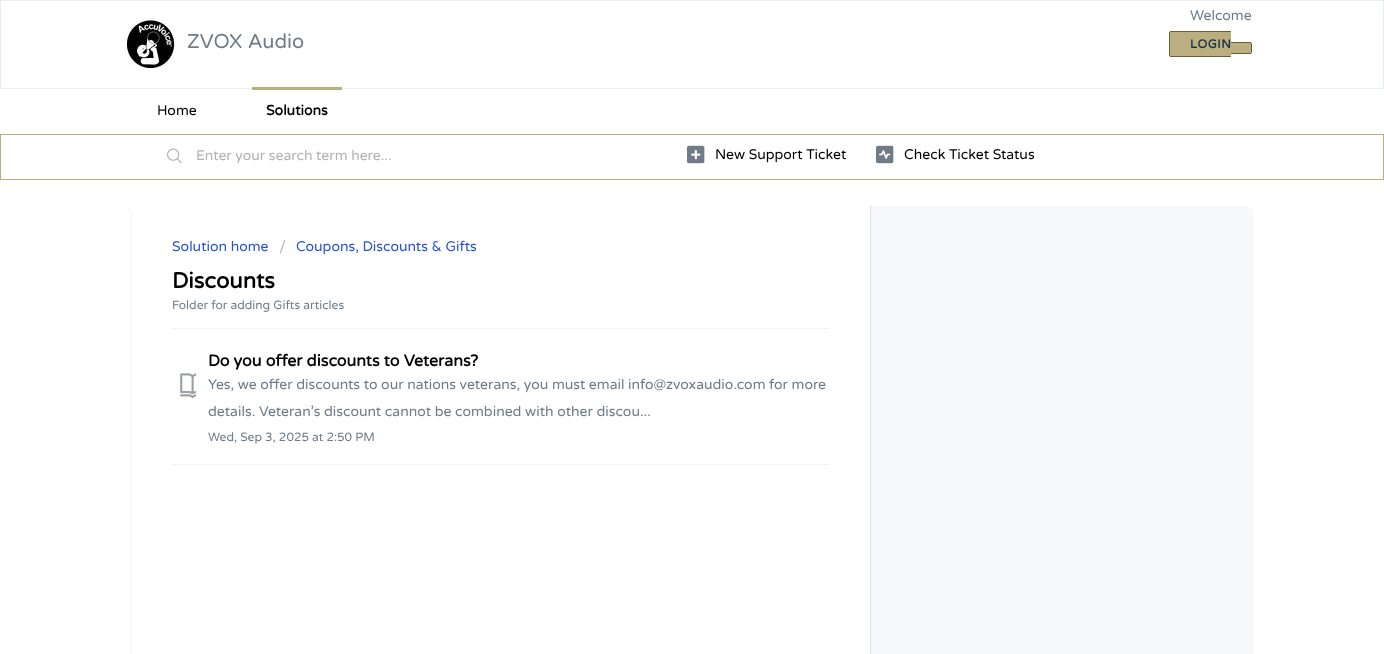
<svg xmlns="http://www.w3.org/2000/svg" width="1384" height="654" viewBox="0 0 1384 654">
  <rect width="100%" height="100%" fill="rgb(255,255,255)"/>
  <rect x="0.5" y="0.5" width="1383" height="88" fill="none" stroke="rgb(235,238,240)"/>
  <image x="127" y="18" width="48" height="50" href="pic1.png"/>
  <text x="187" y="48" font-family="Varela Round" font-size="20" fill="rgb(111,124,135)">ZVOX Audio</text>
  <text x="1190" y="20" font-family="Varela Round" font-size="14" fill="rgb(111,124,135)">Welcome</text>
  <path d="M1171 31H1231V57H1171C1170 57 1169 56 1169 55V33C1169 32 1170 31 1171 31Z" fill="rgb(187,175,127)"/>
  <text x="1190" y="48" font-family="Varela Round" font-size="12" font-weight="bold" letter-spacing="0.5" fill="rgb(24,50,71)">LOGIN</text>
  <rect x="1170" y="31" width="61" height="1" fill="rgb(105,95,56)"/>
  <rect x="1170" y="56" width="61" height="1" fill="rgb(105,95,56)"/>
  <rect x="1169" y="32" width="1" height="24" fill="rgb(105,95,56)"/>
  <path d="M1231 42H1250C1251 42 1252 43 1252 44V52C1252 53 1251 54 1250 54H1231Z" fill="rgb(187,175,127)"/>
  <rect x="1231" y="42" width="20" height="1" fill="rgb(105,95,56)"/>
  <rect x="1251" y="43" width="1" height="10" fill="rgb(105,95,56)"/>
  <rect x="1231" y="53" width="20" height="1" fill="rgb(105,95,56)"/>
  <text x="157" y="115" font-family="Varela Round" font-size="14" fill="rgb(0,0,0)">Home</text>
  <rect x="252" y="87" width="90" height="3" fill="rgb(187,175,127)"/>
  <text x="266" y="115" font-family="Varela Round" font-size="14" font-weight="bold" fill="rgb(0,0,0)">Solutions</text>
  <rect x="0.5" y="134.5" width="1383" height="45" fill="none" stroke="rgb(187,175,127)"/>
  <image x="167" y="148" width="15" height="15" href="pic2.png"/>
  <text x="196" y="160" font-family="Varela Round" font-size="14" fill="rgb(178,178,178)">Enter your search term here...</text>
  <image x="687" y="145" width="18" height="19" href="pic3.png"/>
  <text x="715" y="159" font-family="Varela Round" font-size="14" fill="rgb(0,0,0)">New Support Ticket</text>
  <image x="876" y="145" width="18" height="19" href="pic4.png"/>
  <text x="904" y="159" font-family="Varela Round" font-size="14" fill="rgb(0,0,0)">Check Ticket Status</text>
  <rect x="132" y="207" width="1120" height="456" rx="6" fill="rgba(63,63,68,0.15)" filter="blur(1px)"/>
  <rect x="132" y="206" width="1120" height="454" rx="6" fill="rgb(248,249,250)"/>
  <path d="M138 206H871V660H138C134.5 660 132 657.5 132 654V212C132 208.5 134.5 206 138 206Z" fill="rgb(255,255,255)"/>
  <rect x="870" y="206" width="1" height="448" fill="rgb(218,223,227)"/>
  <text x="172" y="251" font-family="Varela Round" font-size="14" fill="rgb(39,83,215)">Solution home</text>
  <text x="279" y="252" font-family="Varela Round" font-size="16" fill="rgb(187,187,187)">/</text>
  <text x="296" y="251" font-family="Varela Round" font-size="14" fill="rgb(39,83,215)">Coupons, Discounts &amp; Gifts</text>
  <text x="172" y="288" font-family="Varela Round" font-size="22" font-weight="bold" fill="rgb(0,0,0)">Discounts</text>
  <text x="172" y="309" font-family="Varela Round" font-size="12" fill="rgb(111,124,135)">Folder for adding Gifts articles</text>
  <rect x="172" y="464" width="658" height="1" fill="rgb(243,243,243)"/>
  <rect x="172" y="328" width="658" height="1" fill="rgb(243,243,243)"/>
  <text x="208" y="366" font-family="Varela Round" font-size="16" font-weight="bold" fill="rgb(0,0,0)">Do you offer discounts to Veterans?</text>
  <image x="180" y="373" width="16" height="26" href="pic5.png"/>
  <g font-family="Varela Round" font-size="14" fill="rgb(111,124,135)">
    <text>
      <tspan x="208" y="389">Yes, we offer discounts to our nations veterans, you must email info@zvoxaudio.com for more</tspan>
      <tspan x="208" y="416">details. Veteran’s discount cannot be combined with other discou...</tspan>
    </text>
  </g>
  <text x="208" y="441" font-family="Varela Round" font-size="12" fill="rgb(111,124,135)">Wed, Sep 3, 2025 at 2:50 PM</text>
</svg>
